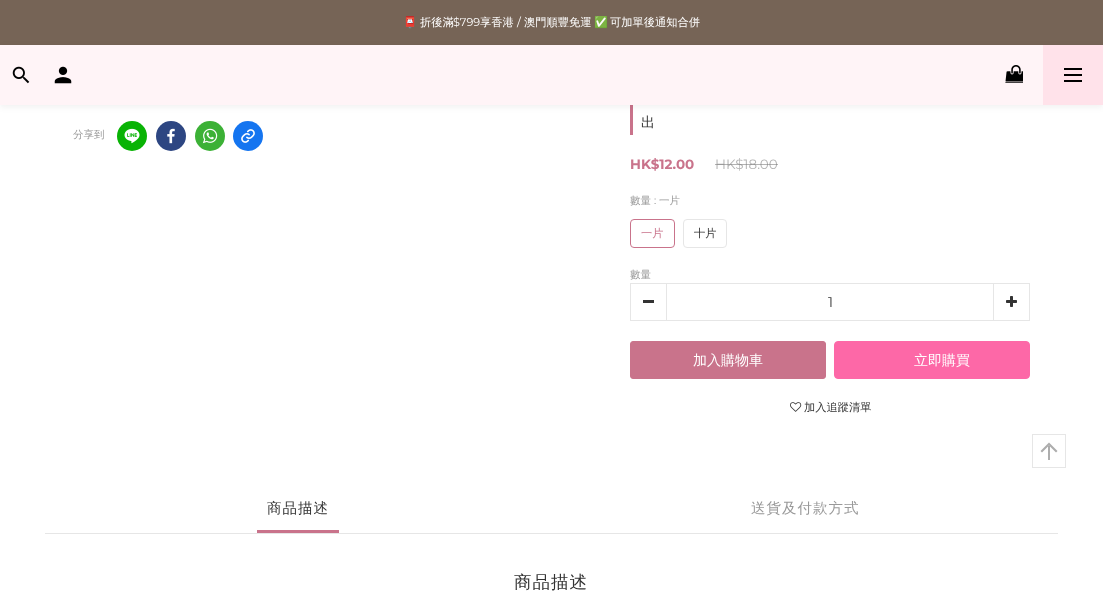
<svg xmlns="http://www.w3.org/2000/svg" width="1103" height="598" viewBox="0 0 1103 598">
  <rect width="100%" height="100%" fill="rgb(255,255,255)"/>
  <rect x="0" y="0" width="1103" height="45" fill="rgb(118,100,86)"/>
  <text x="403" y="26" font-family="Noto Color Emoji" font-size="11.25" fill="rgb(255,255,255)">📮</text>
  <text x="420" y="26" font-family="WenQuanYi Zen Hei" font-size="11.25" font-weight="500" fill="rgb(255,255,255)">折後滿</text>
  <text x="453" y="26" font-family="Montserrat" font-size="11.25" fill="rgb(255,255,255)">$799</text>
  <text x="480" y="26" font-family="WenQuanYi Zen Hei" font-size="11.25" font-weight="500" fill="rgb(255,255,255)">享香港</text>
  <text x="517" y="26" font-family="Montserrat" font-size="11.25" fill="rgb(255,255,255)">/</text>
  <text x="524" y="26" font-family="WenQuanYi Zen Hei" font-size="11.25" font-weight="500" fill="rgb(255,255,255)">澳門順豐免運</text>
  <text x="594" y="26" font-family="Noto Color Emoji" font-size="11.25" fill="rgb(255,255,255)">✅</text>
  <text x="610" y="26" font-family="WenQuanYi Zen Hei" font-size="11.25" font-weight="500" fill="rgb(255,255,255)">可加單後通知合併</text>
  <rect x="630" y="105" width="3" height="30" fill="rgb(201,115,139)"/>
  <rect x="0" y="47" width="1103" height="60" fill="rgba(0,0,0,0.06)" filter="blur(3px)"/>
  <rect x="0" y="45" width="1043" height="60" fill="rgb(255,244,247)"/>
  <image x="12" y="66" width="18" height="18" href="pic1.png"/>
  <image x="54" y="66" width="18" height="18" href="pic2.png"/>
  <image x="1005" y="65" width="18" height="18" href="pic3.png"/>
  <rect x="1043" y="45" width="60" height="60" fill="rgb(255,226,234)"/>
  <rect x="1064" y="74" width="18" height="2" fill="rgb(0,0,0)"/>
  <rect x="1064" y="68" width="18" height="2" fill="rgb(0,0,0)"/>
  <rect x="1064" y="80" width="18" height="2" fill="rgb(0,0,0)"/>
  <text x="73" y="138" font-family="WenQuanYi Zen Hei" font-size="10.5" font-weight="500" fill="rgb(153,153,153)">分享到</text>
  <circle cx="132" cy="136" r="15" fill="rgb(9,179,5)"/>
  <image x="124" y="128" width="16" height="16" href="pic4.png"/>
  <circle cx="171" cy="136" r="15" fill="rgb(45,70,130)"/>
  <image x="167" y="128" width="8" height="16" href="pic5.png"/>
  <circle cx="210" cy="136" r="15" fill="rgb(60,177,54)"/>
  <image x="202" y="128" width="16" height="16" href="pic6.png"/>
  <circle cx="248" cy="136" r="15" fill="rgb(21,117,240)"/>
  <image x="241" y="129" width="14" height="14" href="pic7.png"/>
  <text x="641" y="127" font-family="WenQuanYi Zen Hei" font-size="14" font-weight="500" fill="rgb(51,51,51)">出</text>
  <text x="630" y="169" font-family="Montserrat" font-size="13.5" font-weight="bold" fill="rgb(201,115,139)">HK$12.00</text>
  <text x="715" y="169" font-family="Montserrat" font-size="13.5" fill="rgb(179,179,179)">HK$18.00</text>
  <rect x="715" y="164" width="63" height="1" fill="rgba(128,128,128,0.6)"/>
  <text x="630" y="204" font-family="WenQuanYi Zen Hei" font-size="10.5" font-weight="500" fill="rgb(153,153,153)">數量</text>
  <text x="654" y="204" font-family="Montserrat" font-size="10.5" fill="rgb(153,153,153)">:</text>
  <text x="659" y="204" font-family="WenQuanYi Zen Hei" font-size="10.5" font-weight="500" fill="rgb(153,153,153)">一片</text>
  <rect x="630.5" y="219.5" width="44" height="28" rx="3.5" fill="none" stroke="rgb(201,115,139)"/>
  <text x="641" y="237" font-family="WenQuanYi Zen Hei" font-size="11.25" font-weight="500" fill="rgb(201,115,139)">一片</text>
  <rect x="683.5" y="219.5" width="43" height="28" rx="3.5" fill="none" stroke="rgb(230,230,230)"/>
  <text x="694" y="237" font-family="WenQuanYi Zen Hei" font-size="11.25" font-weight="500" fill="rgb(51,51,51)">十片</text>
  <text x="630" y="278" font-family="WenQuanYi Zen Hei" font-size="10.5" font-weight="500" fill="rgb(153,153,153)">數量</text>
  <rect x="666" y="283" width="328" height="1" fill="rgb(230,230,230)"/>
  <rect x="666" y="320" width="328" height="1" fill="rgb(230,230,230)"/>
  <rect x="630.5" y="283.5" width="36" height="37" fill="none" stroke="rgb(230,230,230)"/>
  <rect x="643" y="300" width="11" height="3" fill="rgb(51,51,51)"/>
  <text x="828" y="307" font-family="Montserrat" font-size="14" fill="rgb(51,51,51)">1</text>
  <rect x="993.5" y="283.5" width="36" height="37" fill="none" stroke="rgb(230,230,230)"/>
  <image x="1006" y="296" width="11" height="11" href="pic8.png"/>
  <rect x="630.5" y="341.5" width="195" height="37" rx="2.5" fill="rgb(201,115,139)" stroke="rgb(201,115,139)"/>
  <text x="693" y="365" font-family="WenQuanYi Zen Hei" font-size="14" font-weight="500" fill="rgb(255,255,255)">加入購物車</text>
  <rect x="834.5" y="341.5" width="195" height="37" rx="3.5" fill="rgb(253,104,167)" stroke="rgb(253,104,167)"/>
  <text x="914" y="365" font-family="WenQuanYi Zen Hei" font-size="14" font-weight="500" fill="rgb(255,255,255)">立即購買</text>
  <image x="790" y="402" width="12" height="10" href="pic9.png"/>
  <text x="804" y="411" font-family="WenQuanYi Zen Hei" font-size="11.25" font-weight="500" fill="rgb(51,51,51)">加入追蹤清單</text>
  <rect x="45" y="533" width="1013" height="1" fill="rgb(230,230,230)"/>
  <text x="267" y="513" font-family="WenQuanYi Zen Hei" font-size="14.5" font-weight="500" letter-spacing="1" fill="rgb(51,51,51)">商品描述</text>
  <rect x="257" y="530" width="82" height="3" fill="rgb(201,115,139)"/>
  <text x="751" y="513" font-family="WenQuanYi Zen Hei" font-size="14.5" font-weight="500" letter-spacing="1" fill="rgb(153,153,153)">送貨及付款方式</text>
  <text x="514" y="588" font-family="WenQuanYi Zen Hei" font-size="17.5" font-weight="500" letter-spacing="1" fill="rgb(51,51,51)">商品描述</text>
  <rect x="1032.5" y="434.5" width="33" height="33" fill="none" stroke="rgb(230,230,230)"/>
  <path d="M1049 442.5L1057.5 451L1056 452.5L1049 445.5ZM1040.5 451L1049 442.5V445.5L1042 452.5Z" fill="rgb(173,173,173)"/>
  <rect x="1048" y="446" width="2" height="14" fill="rgba(153,153,153,0.8)"/>
</svg>
